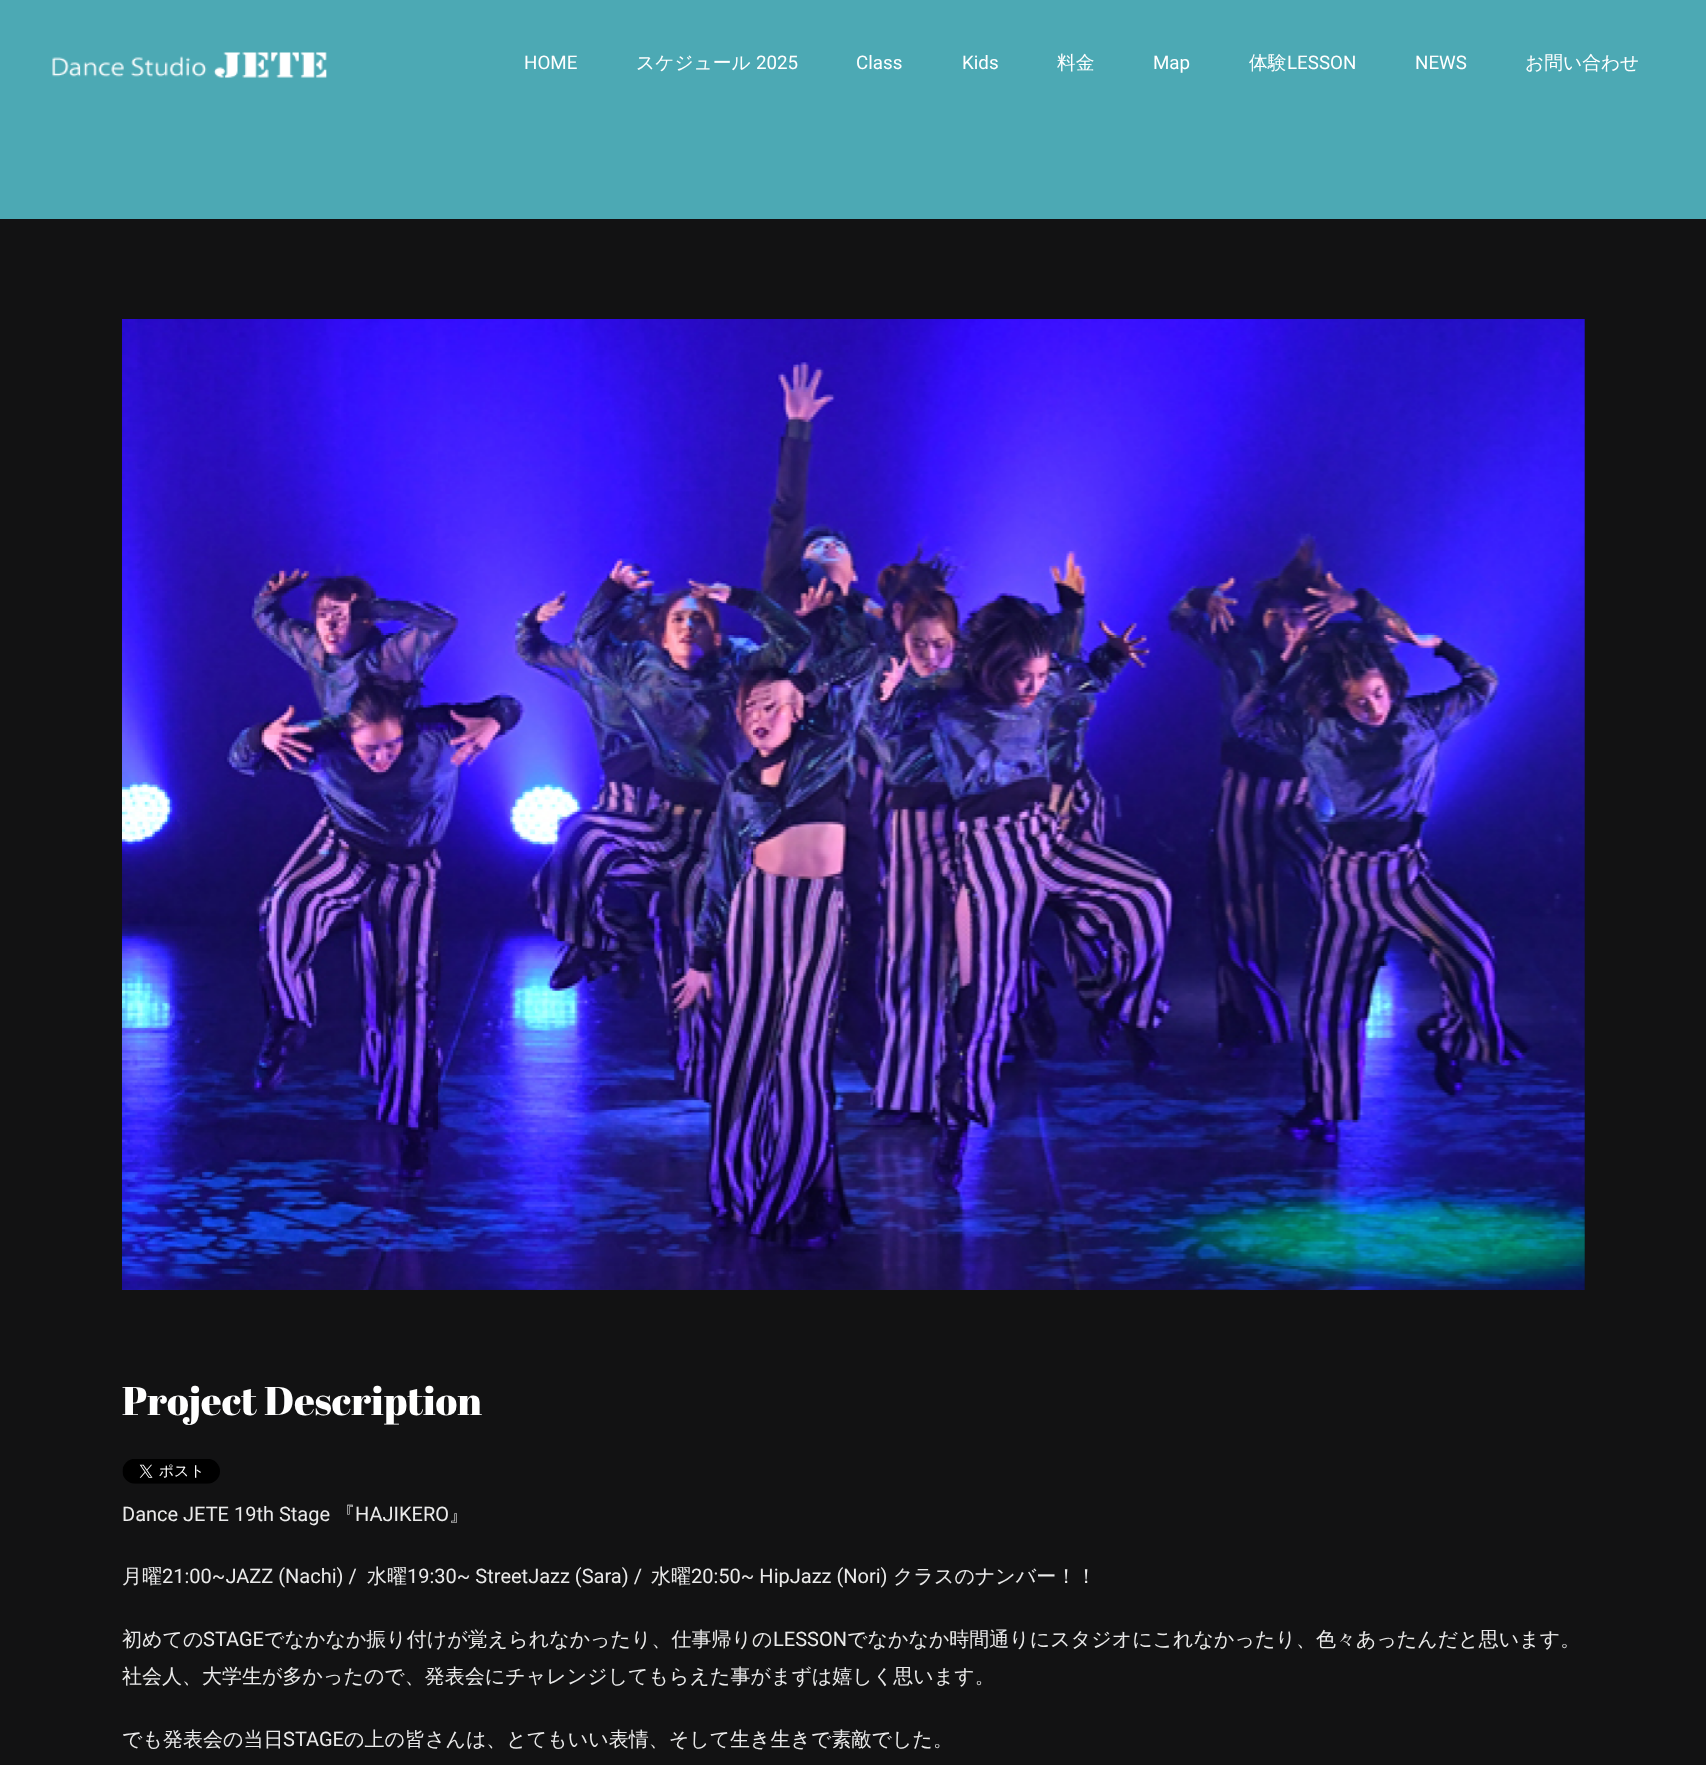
<svg xmlns="http://www.w3.org/2000/svg" width="1706" height="1765" viewBox="0 0 1706 1765">
  <rect width="100%" height="100%" fill="rgb(18,18,19)"/>
  <rect x="0" y="0" width="1706" height="219" fill="rgb(76,169,180)"/>
  <image x="52" y="52" width="275" height="26" href="pic1.png"/>
  <text x="524" y="69" font-family="Roboto" font-size="18.75" fill="rgb(255,255,255)">HOME</text>
  <text x="636" y="69" font-family="WenQuanYi Zen Hei" font-size="18.75" font-weight="500" fill="rgb(255,255,255)">スケジュール</text>
  <g font-family="Roboto" font-size="18.75" fill="rgb(255,255,255)">
    <text x="756" y="69">2025</text>
    <text x="856" y="69">Class</text>
    <text x="962" y="69">Kids</text>
  </g>
  <text x="1057" y="69" font-family="WenQuanYi Zen Hei" font-size="18.75" font-weight="500" fill="rgb(255,255,255)">料金</text>
  <text x="1153" y="69" font-family="Roboto" font-size="18.75" fill="rgb(255,255,255)">Map</text>
  <text x="1249" y="69" font-family="WenQuanYi Zen Hei" font-size="18.75" font-weight="500" fill="rgb(255,255,255)">体験</text>
  <g font-family="Roboto" font-size="18.75" fill="rgb(255,255,255)">
    <text x="1287" y="69">LESSON</text>
    <text x="1415" y="69">NEWS</text>
  </g>
  <text x="1525" y="69" font-family="WenQuanYi Zen Hei" font-size="18.75" font-weight="500" fill="rgb(255,255,255)">お問い合わせ</text>
  <image x="122" y="319" width="1463" height="971" href="pic2.png"/>
  <text x="122" y="1415" font-family="Abril Fatface" font-size="40" fill="rgb(255,255,255)">Project Description</text>
  <image x="122" y="1459" width="98" height="25" href="pic3.png"/>
  <text x="122" y="1521" font-family="Roboto" font-size="20" fill="rgb(234,234,234)">Dance JETE 19th Stage</text>
  <text x="335" y="1521" font-family="WenQuanYi Zen Hei" font-size="20" font-weight="500" fill="rgb(234,234,234)">『</text>
  <text x="355" y="1521" font-family="Roboto" font-size="20" fill="rgb(234,234,234)">HAJIKERO</text>
  <g font-family="WenQuanYi Zen Hei" font-size="20" font-weight="500" fill="rgb(234,234,234)">
    <text x="449" y="1521">』</text>
    <text x="122" y="1583">月曜</text>
  </g>
  <text x="162" y="1583" font-family="Roboto" font-size="20" fill="rgb(234,234,234)">21:00~JAZZ (Nachi) /</text>
  <text x="367" y="1583" font-family="WenQuanYi Zen Hei" font-size="20" font-weight="500" fill="rgb(234,234,234)">水曜</text>
  <text x="407" y="1583" font-family="Roboto" font-size="20" fill="rgb(234,234,234)">19:30~ StreetJazz (Sara) /</text>
  <text x="651" y="1583" font-family="WenQuanYi Zen Hei" font-size="20" font-weight="500" fill="rgb(234,234,234)">水曜</text>
  <text x="691" y="1583" font-family="Roboto" font-size="20" fill="rgb(234,234,234)">20:50~ HipJazz (Nori)</text>
  <g font-family="WenQuanYi Zen Hei" font-size="20" font-weight="500" fill="rgb(234,234,234)">
    <text x="893" y="1583">クラスのナンバー！！</text>
    <text x="122" y="1646">初めての</text>
  </g>
  <text x="203" y="1646" font-family="Roboto" font-size="20" fill="rgb(234,234,234)">STAGE</text>
  <text x="264" y="1646" font-family="WenQuanYi Zen Hei" font-size="20" font-weight="500" fill="rgb(234,234,234)">でなかなか振り付けが覚えられなかったり、仕事帰りの</text>
  <text x="773" y="1646" font-family="Roboto" font-size="20" fill="rgb(234,234,234)">LESSON</text>
  <g font-family="WenQuanYi Zen Hei" font-size="20" font-weight="500" fill="rgb(234,234,234)">
    <text x="847" y="1646">でなかなか時間通りにスタジオにこれなかったり、色々あったんだと思います。</text>
    <text x="122" y="1683">社会人、大学生が多かったので、発表会にチャレンジしてもらえた事がまずは嬉しく思います。</text>
    <text x="122" y="1746">でも発表会の当日</text>
  </g>
  <text x="283" y="1746" font-family="Roboto" font-size="20" fill="rgb(234,234,234)">STAGE</text>
  <text x="344" y="1746" font-family="WenQuanYi Zen Hei" font-size="20" font-weight="500" fill="rgb(234,234,234)">の上の皆さんは、とてもいい表情、そして生き生きで素敵でした。</text>
</svg>
